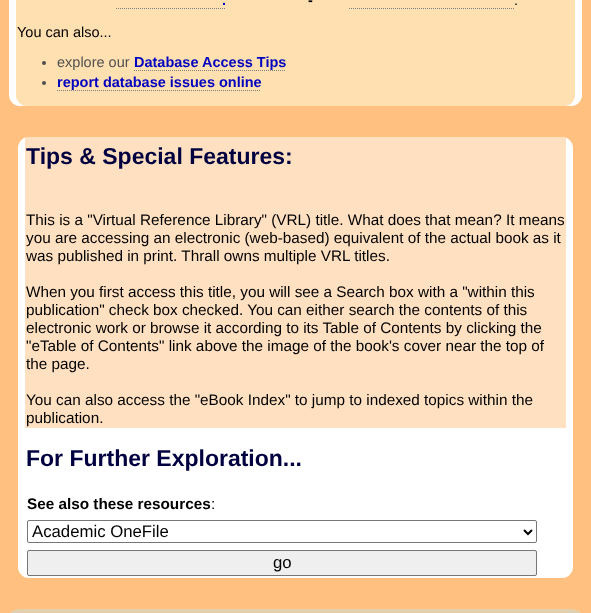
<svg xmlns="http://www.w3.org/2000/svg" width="591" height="613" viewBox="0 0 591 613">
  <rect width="100%" height="100%" fill="rgb(255,192,128)"/>
  <rect x="9" y="-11" width="573" height="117" rx="11" fill="rgb(255,255,255)"/>
  <rect x="16" y="-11" width="559" height="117" rx="11" fill="rgb(255,224,176)"/>
  <text x="308" y="5" font-family="Liberation Sans" font-size="14.5" font-weight="bold" fill="rgb(0,0,0)">-</text>
  <text x="222" y="5" font-family="Liberation Sans" font-size="14.5" font-weight="bold" fill="rgb(0,0,192)">.</text>
  <path d="M116 8.5H226" fill="none" stroke="rgb(128,128,128)" stroke-dasharray="1 1"/>
  <text x="514" y="5" font-family="Liberation Sans" font-size="14.5" fill="rgb(0,0,0)">.</text>
  <path d="M349 8.5H514" fill="none" stroke="rgb(128,128,128)" stroke-dasharray="1 1"/>
  <text x="17" y="37" font-family="Liberation Sans" font-size="14.5" fill="rgb(0,0,0)">You can also...</text>
  <circle cx="44" cy="63" r="2" fill="rgb(80,80,80)"/>
  <text x="57" y="67" font-family="Liberation Sans" font-size="14.5" fill="rgb(80,80,80)">explore our</text>
  <text x="134" y="67" font-family="Liberation Sans" font-size="14.5" font-weight="bold" fill="rgb(0,0,192)">Database Access Tips</text>
  <path d="M134 70.5H285" fill="none" stroke="rgb(128,128,128)" stroke-dasharray="1 1"/>
  <circle cx="44" cy="83" r="2" fill="rgb(80,80,80)"/>
  <text x="57" y="87" font-family="Liberation Sans" font-size="14.5" font-weight="bold" fill="rgb(0,0,192)">report database issues online</text>
  <path d="M57 90.5H261" fill="none" stroke="rgb(128,128,128)" stroke-dasharray="1 1"/>
  <rect x="18" y="137" width="555" height="441" rx="11" fill="rgb(255,255,255)"/>
  <rect x="25" y="137" width="541" height="291" fill="rgb(255,224,192)"/>
  <text x="26" y="164" font-family="Liberation Sans" font-size="23" font-weight="bold" fill="rgb(0,0,64)">Tips &amp; Special Features:</text>
  <g font-family="Liberation Sans" font-size="15.3" fill="rgb(0,0,0)">
    <text>
      <tspan x="26" y="225">This is a "Virtual Reference Library" (VRL) title. What does that mean? It means</tspan>
      <tspan x="26" y="243">you are accessing an electronic (web-based) equivalent of the actual book as it</tspan>
      <tspan x="26" y="261">was published in print. Thrall owns multiple VRL titles.</tspan>
    </text>
    <text>
      <tspan x="26" y="297">When you first access this title, you will see a Search box with a "within this</tspan>
      <tspan x="26" y="315">publication" check box checked. You can either search the contents of this</tspan>
      <tspan x="26" y="333">electronic work or browse it according to its Table of Contents by clicking the</tspan>
      <tspan x="26" y="351">"eTable of Contents" link above the image of the book's cover near the top of</tspan>
      <tspan x="26" y="369">the page.</tspan>
    </text>
    <text>
      <tspan x="26" y="405">You can also access the "eBook Index" to jump to indexed topics within the</tspan>
      <tspan x="26" y="423">publication.</tspan>
    </text>
  </g>
  <text x="26" y="466" font-family="Liberation Sans" font-size="23" font-weight="bold" fill="rgb(0,0,64)">For Further Exploration...</text>
  <text x="27" y="509" font-family="Liberation Sans" font-size="15.3" font-weight="bold" fill="rgb(0,0,0)">See also these resources</text>
  <text x="211" y="509" font-family="Liberation Sans" font-size="15.3" fill="rgb(0,0,0)">:</text>
  <rect x="27.5" y="520.5" width="509" height="22" rx="1.5" fill="none" stroke="rgb(118,118,118)"/>
  <path d="M524 530L528 534L532 530" fill="none" stroke="rgb(0,0,0)" stroke-width="2"/>
  <text x="32" y="537" font-family="Liberation Sans" font-size="16.75" fill="rgb(0,0,0)">Academic OneFile</text>
  <rect x="27.5" y="550.5" width="509" height="25" rx="1.5" fill="rgb(239,239,239)" stroke="rgb(118,118,118)"/>
  <text x="273" y="568" font-family="Liberation Sans" font-size="16.75" fill="rgb(0,0,0)">go</text>
  <rect x="9" y="609" width="573" height="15" rx="11" fill="rgb(224,208,176)"/>
</svg>
